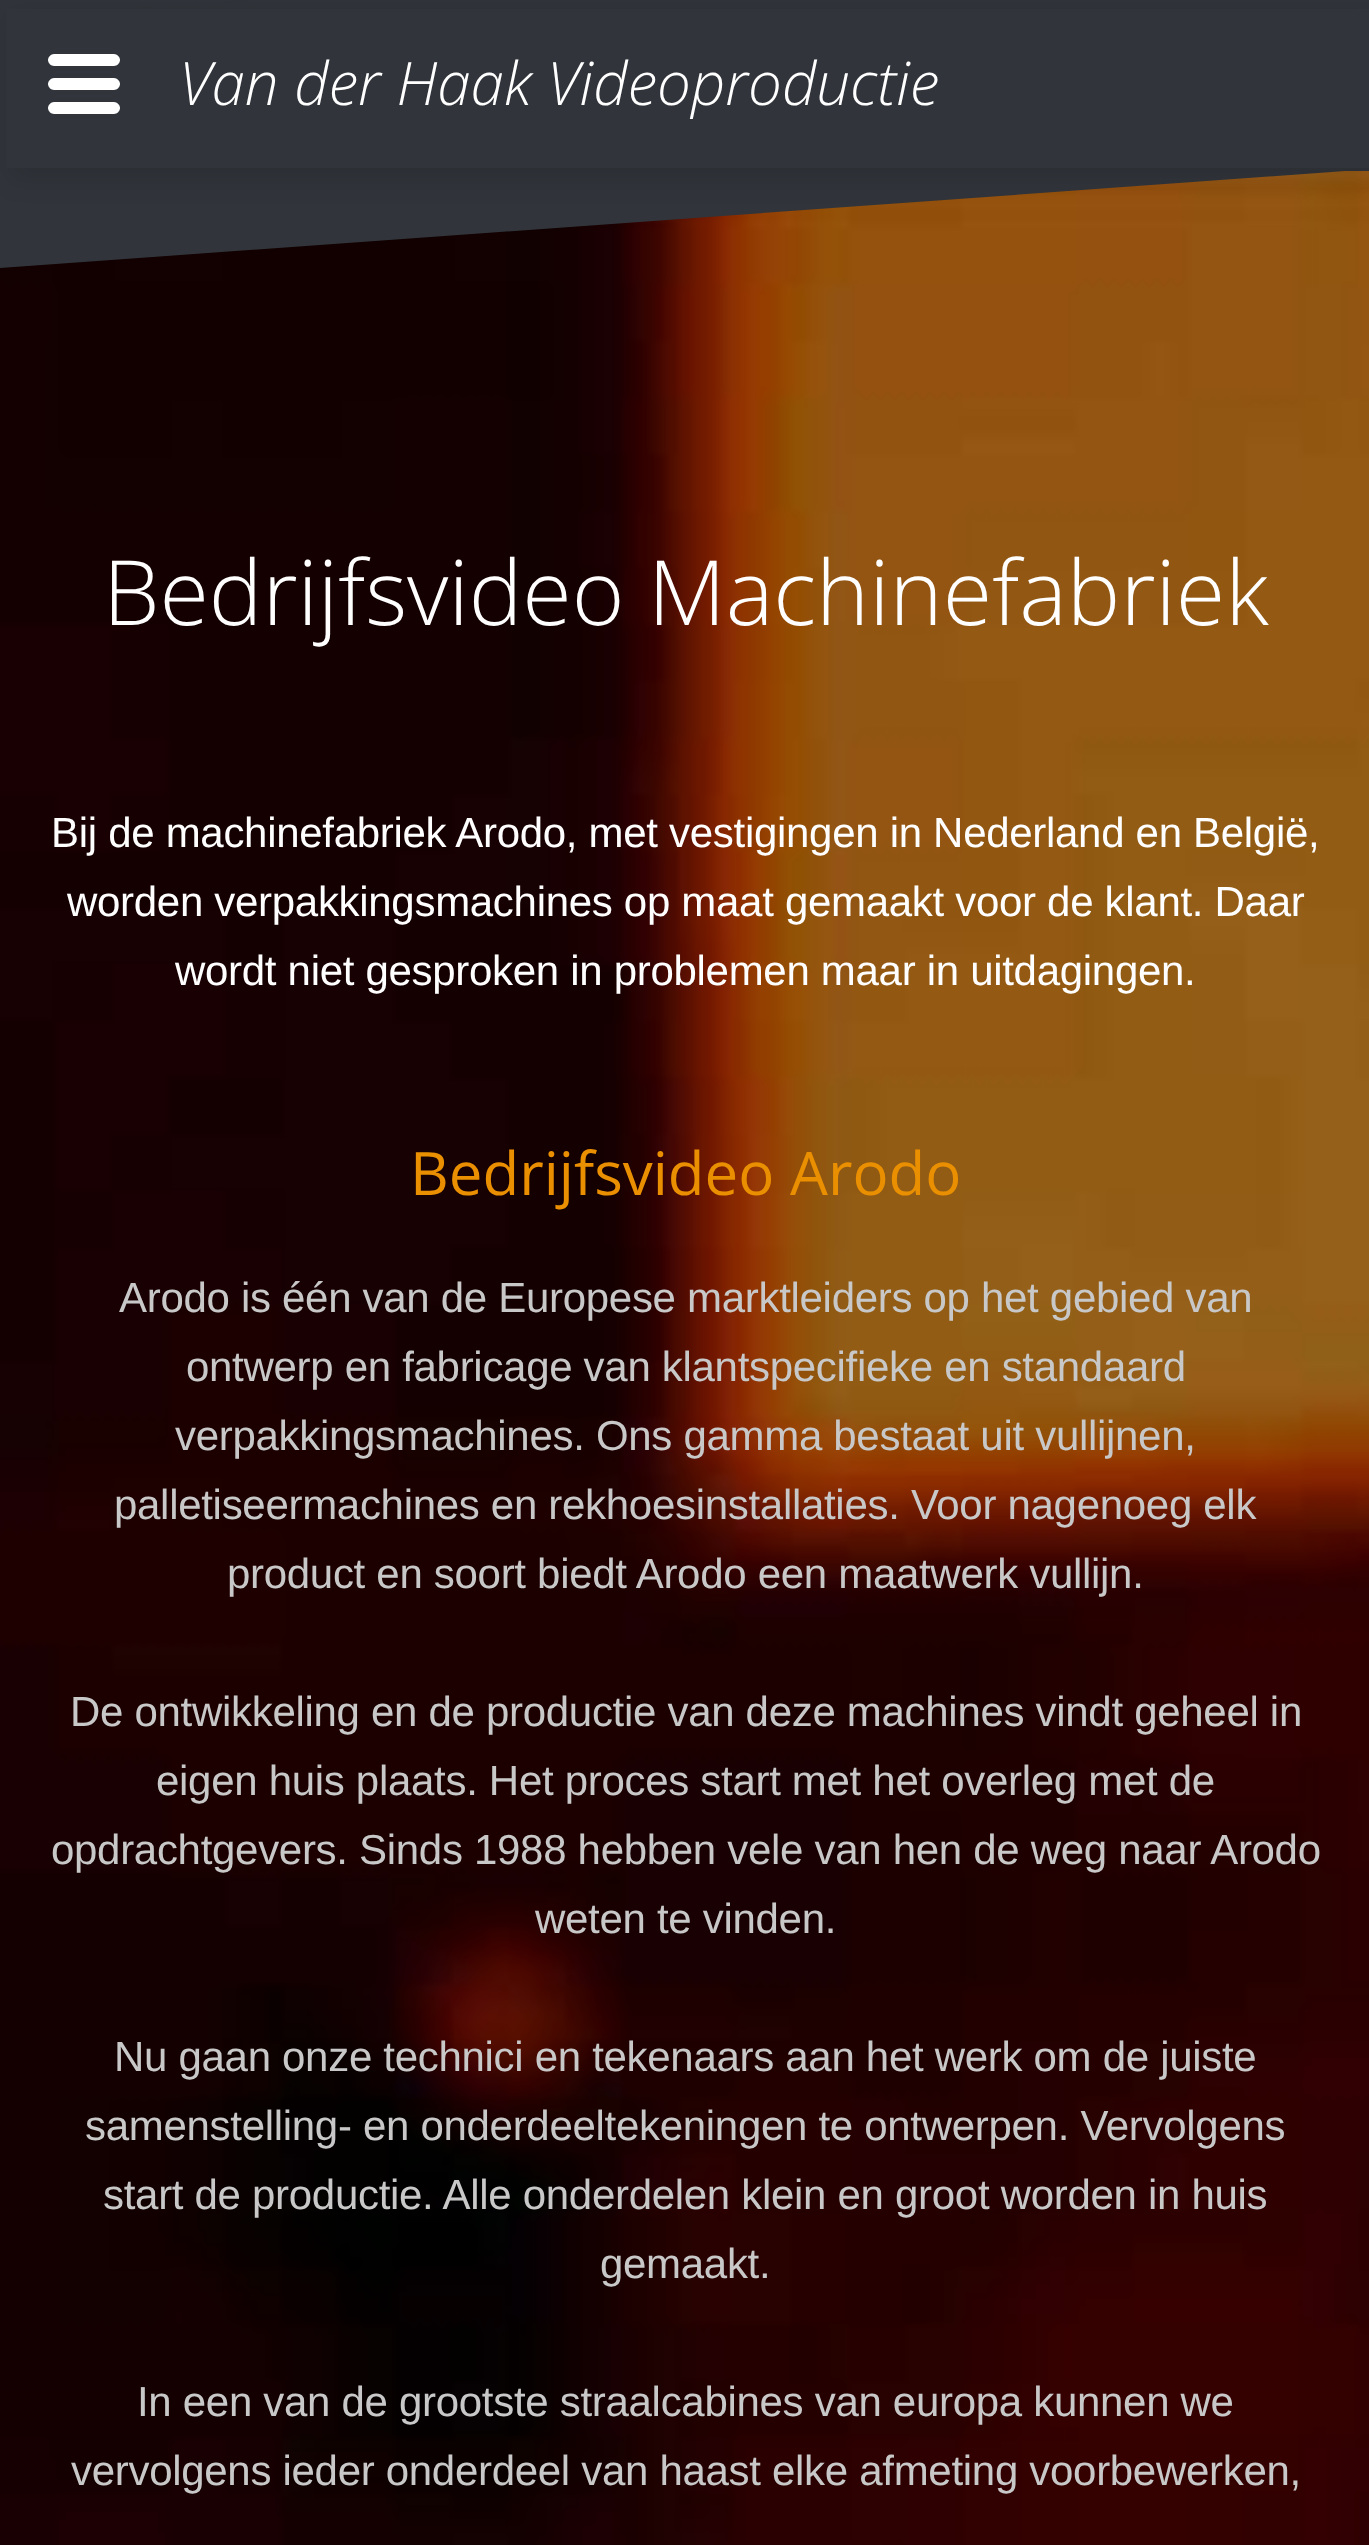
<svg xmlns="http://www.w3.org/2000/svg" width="1369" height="2545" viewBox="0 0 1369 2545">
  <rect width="100%" height="100%" fill="rgb(49,53,59)"/>
  <image x="0" y="171" width="1369" height="2374" href="pic1.png"/>
  <path d="M0 18V268L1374 169V-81Z" fill="rgb(49,53,59)"/>
  <rect x="9" y="12" width="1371" height="168" fill="rgba(0,0,0,0.11)" filter="blur(12px)"/>
  <rect x="6" y="9" width="1363" height="159" fill="rgb(49,53,59)"/>
  <path d="M114 90H54C51 90 48 87 48 84C48 81 51 78 54 78H114C117 78 120 81 120 84C120 87 117 90 114 90Z" fill="rgb(255,255,255)"/>
  <path d="M114 66H54C51 66 48 63 48 60C48 57 51 54 54 54H114C117 54 120 57 120 60C120 63 117 66 114 66Z" fill="rgb(255,255,255)"/>
  <path d="M114 114H54C51 114 48 111 48 108C48 105 51 102 54 102H114C117 102 120 105 120 108C120 111 117 114 114 114Z" fill="rgb(255,255,255)"/>
  <text x="179" y="105" font-family="Open Sans" font-size="60" font-weight="300" font-style="italic" fill="rgb(255,255,255)">Van der Haak Videoproductie</text>
  <text x="103" y="625" font-family="Open Sans" font-size="90" font-weight="300" fill="rgb(255,255,255)">Bedrijfsvideo Machinefabriek</text>
  <g font-family="Liberation Sans" font-size="42" letter-spacing="-0.3" fill="rgb(255,255,255)">
    <text x="51" y="847">Bij de machinefabriek Arodo, met vestigingen in Nederland en België,</text>
    <text x="67" y="916">worden verpakkingsmachines op maat gemaakt voor de klant. Daar</text>
    <text x="175" y="985">wordt niet gesproken in problemen maar in uitdagingen.</text>
  </g>
  <text x="410" y="1195" font-family="Open Sans" font-size="60" fill="rgb(234,143,0)">Bedrijfsvideo Arodo</text>
  <g font-family="Liberation Sans" font-size="42" letter-spacing="-0.3" fill="rgb(200,200,200)">
    <text x="119" y="1312">Arodo is één van de Europese marktleiders op het gebied van</text>
    <text x="186" y="1381">ontwerp en fabricage van klantspecifieke en standaard</text>
    <text x="175" y="1450">verpakkingsmachines. Ons gamma bestaat uit vullijnen,</text>
    <text x="114" y="1519">palletiseermachines en rekhoesinstallaties. Voor nagenoeg elk</text>
    <text x="227" y="1588">product en soort biedt Arodo een maatwerk vullijn.</text>
    <text x="70" y="1726">De ontwikkeling en de productie van deze machines vindt geheel in</text>
    <text x="156" y="1795">eigen huis plaats. Het proces start met het overleg met de</text>
    <text x="51" y="1864">opdrachtgevers. Sinds 1988 hebben vele van hen de weg naar Arodo</text>
    <text x="535" y="1933">weten te vinden.</text>
    <text x="114" y="2071">Nu gaan onze technici en tekenaars aan het werk om de juiste</text>
    <text x="85" y="2140">samenstelling- en onderdeeltekeningen te ontwerpen. Vervolgens</text>
    <text x="103" y="2209">start de productie. Alle onderdelen klein en groot worden in huis</text>
    <text x="600" y="2278">gemaakt.</text>
    <text x="137" y="2416">In een van de grootste straalcabines van europa kunnen we</text>
    <text x="71" y="2485">vervolgens ieder onderdeel van haast elke afmeting voorbewerken,</text>
  </g>
</svg>
